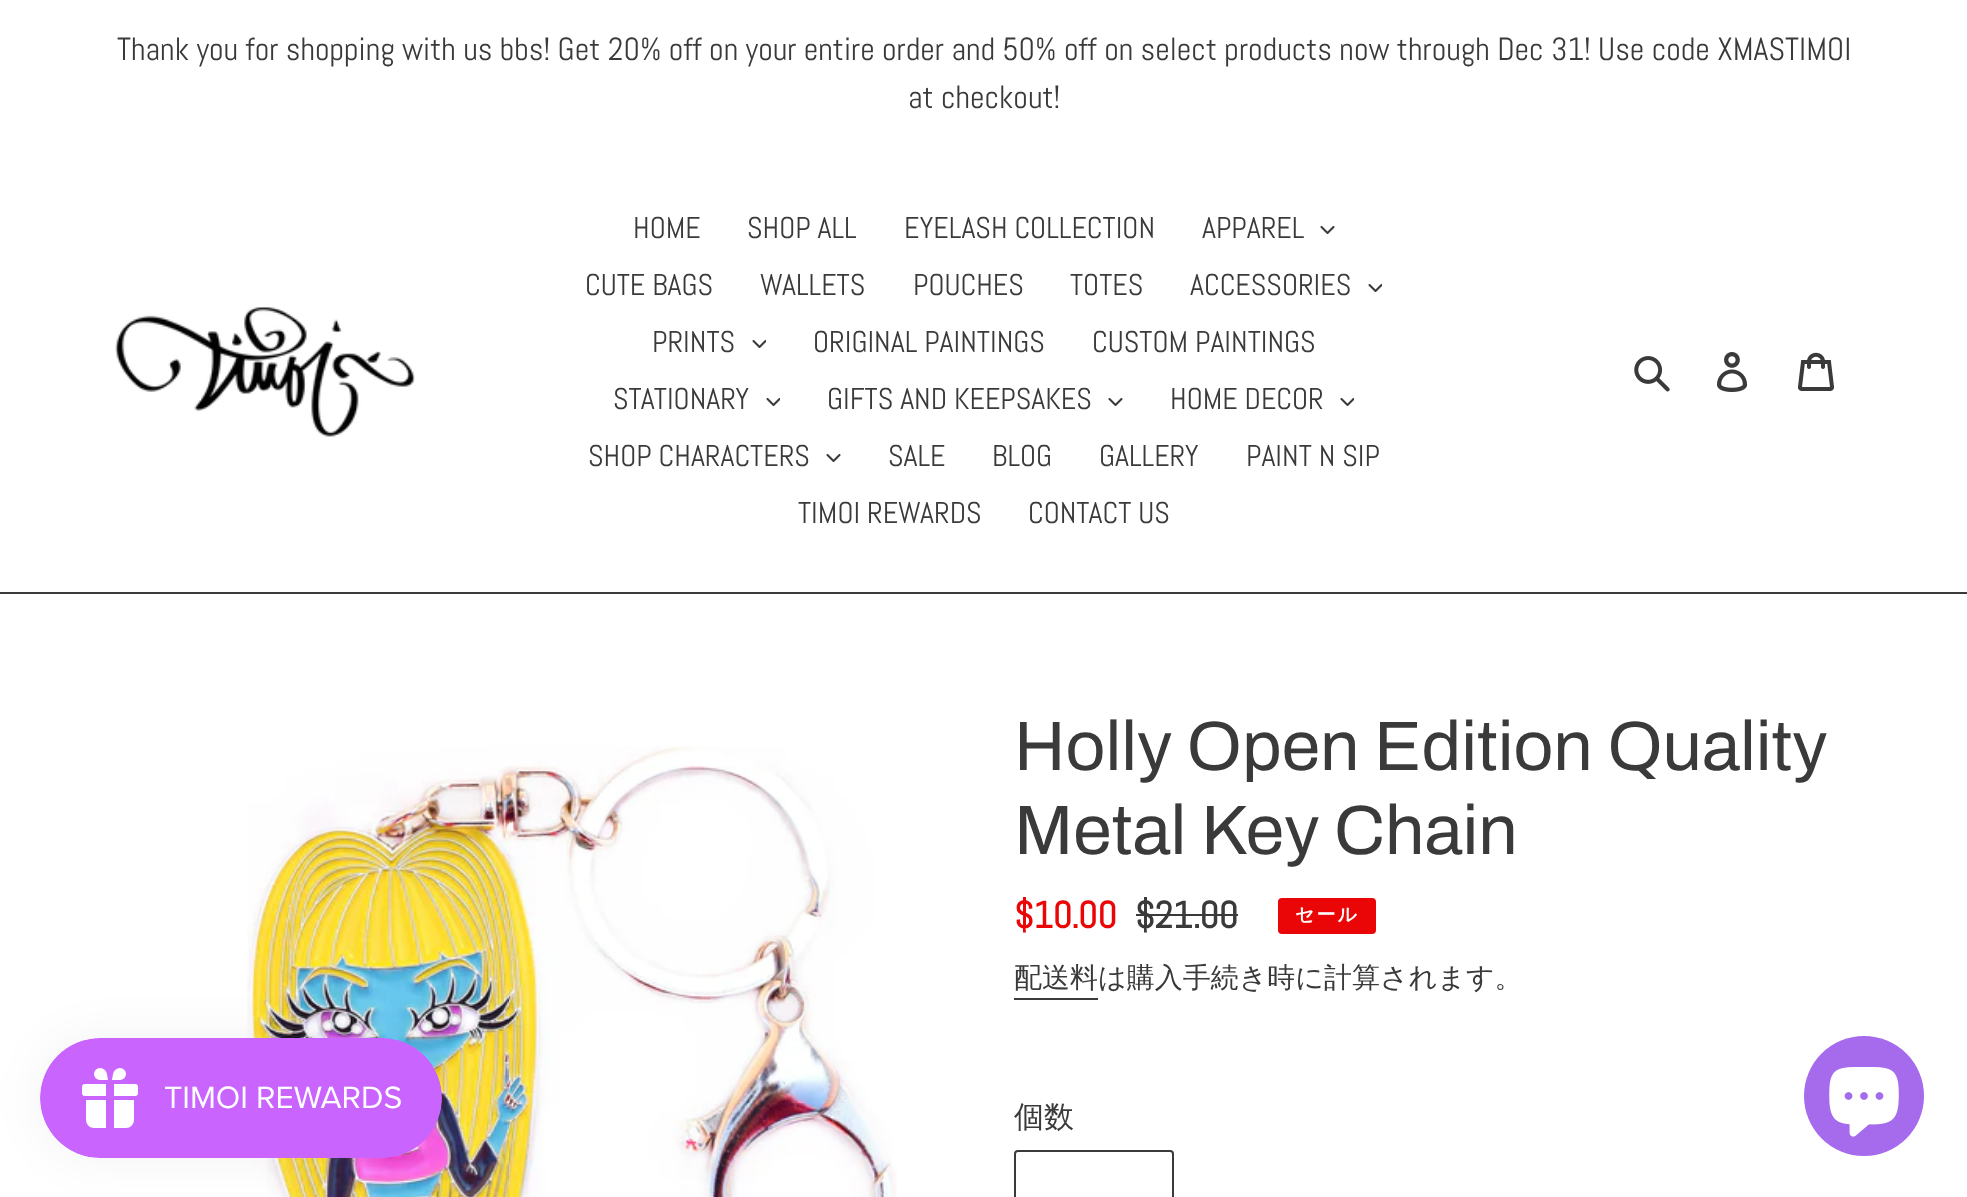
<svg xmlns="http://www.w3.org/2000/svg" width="1967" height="1197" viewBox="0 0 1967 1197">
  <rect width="100%" height="100%" fill="rgb(255,255,255)"/>
  <g font-family="Abel" font-size="32" fill="rgb(58,58,58)">
    <text x="117" y="60">Thank you for shopping with us bbs! Get 20% off on your entire order and 50% off on select products now through Dec 31! Use code XMASTIMOI</text>
    <text x="908" y="108">at checkout!</text>
  </g>
  <rect x="0" y="592" width="1967" height="2" fill="rgb(58,58,58)"/>
  <image x="115" y="307" width="300" height="130" href="pic1.png"/>
  <g font-family="Abel" font-size="30" fill="rgb(58,58,58)">
    <text x="633" y="238">HOME</text>
    <text x="747" y="238">SHOP ALL</text>
    <text x="904" y="238">EYELASH COLLECTION</text>
    <text x="1202" y="238">APPAREL</text>
  </g>
  <image x="1320" y="226" width="15" height="8" href="pic2.png"/>
  <g font-family="Abel" font-size="30" fill="rgb(58,58,58)">
    <text x="585" y="295">CUTE BAGS</text>
    <text x="760" y="295">WALLETS</text>
    <text x="913" y="295">POUCHES</text>
    <text x="1070" y="295">TOTES</text>
    <text x="1190" y="295">ACCESSORIES</text>
  </g>
  <image x="1368" y="284" width="14" height="8" href="pic3.png"/>
  <text x="652" y="352" font-family="Abel" font-size="30" fill="rgb(58,58,58)">PRINTS</text>
  <image x="752" y="340" width="14" height="8" href="pic3.png"/>
  <g font-family="Abel" font-size="30" fill="rgb(58,58,58)">
    <text x="813" y="352">ORIGINAL PAINTINGS</text>
    <text x="1092" y="352">CUSTOM PAINTINGS</text>
    <text x="613" y="409">STATIONARY</text>
  </g>
  <image x="766" y="398" width="14" height="8" href="pic3.png"/>
  <text x="827" y="409" font-family="Abel" font-size="30" fill="rgb(58,58,58)">GIFTS AND KEEPSAKES</text>
  <image x="1108" y="398" width="15" height="8" href="pic2.png"/>
  <text x="1170" y="409" font-family="Abel" font-size="30" fill="rgb(58,58,58)">HOME DECOR</text>
  <image x="1340" y="398" width="14" height="8" href="pic3.png"/>
  <text x="588" y="466" font-family="Abel" font-size="30" fill="rgb(58,58,58)">SHOP CHARACTERS</text>
  <image x="826" y="454" width="15" height="8" href="pic2.png"/>
  <g font-family="Abel" font-size="30" fill="rgb(58,58,58)">
    <text x="888" y="466">SALE</text>
    <text x="992" y="466">BLOG</text>
    <text x="1099" y="466">GALLERY</text>
    <text x="1246" y="466">PAINT N SIP</text>
    <text x="798" y="523">TIMOI REWARDS</text>
    <text x="1028" y="523">CONTACT US</text>
  </g>
  <image x="1634" y="356" width="36" height="36" href="pic4.png"/>
  <image x="1717" y="352" width="31" height="40" href="pic5.png"/>
  <image x="1798" y="352" width="36" height="39" href="pic6.png"/>
  <image x="247" y="746" width="650" height="451" href="pic8.png"/>
  <rect x="40" y="1038" width="402" height="120" rx="60" fill="rgba(0,0,0,0.05)" filter="blur(25px)"/>
  <image x="40" y="1038" width="402" height="120" href="pic7.png"/>
  <g font-family="Archivo" font-size="70" fill="rgb(58,58,58)">
    <text>
      <tspan x="1014" y="770">Holly Open Edition Quality</tspan>
      <tspan x="1014" y="854">Metal Key Chain</tspan>
    </text>
  </g>
  <text x="1014" y="928" font-family="Abel" font-size="37.5" font-weight="bold" fill="rgb(234,6,6)">$10.00</text>
  <text x="1135" y="928" font-family="Abel" font-size="37.5" font-weight="bold" fill="rgb(58,58,58)">$21.00</text>
  <rect x="1136" y="914" width="102" height="2" fill="rgb(58,58,58)"/>
  <rect x="1279" y="899" width="96" height="34" rx="3" fill="rgb(234,6,6)" stroke="rgb(234,6,6)" stroke-width="2"/>
  <text x="1295" y="921" font-family="WenQuanYi Zen Hei" font-size="19" font-weight="bold" letter-spacing="2" fill="rgb(255,255,255)">セール</text>
  <text x="1014" y="987" font-family="WenQuanYi Zen Hei" font-size="28" font-weight="500" fill="rgb(58,58,58)">配送料は購入手続き時に計算されます。</text>
  <rect x="1014" y="998" width="84" height="2" fill="rgb(58,58,58)"/>
  <text x="1014" y="1127" font-family="WenQuanYi Zen Hei" font-size="30" font-weight="500" fill="rgb(58,58,58)">個数</text>
  <rect x="1015" y="1151" width="158" height="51" rx="3" fill="none" stroke="rgb(58,58,58)" stroke-width="2"/>
  <circle cx="1864" cy="1096" r="60" fill="rgb(166,106,237)"/>
  <image x="1829" y="1067" width="70" height="70" href="pic9.png"/>
</svg>
